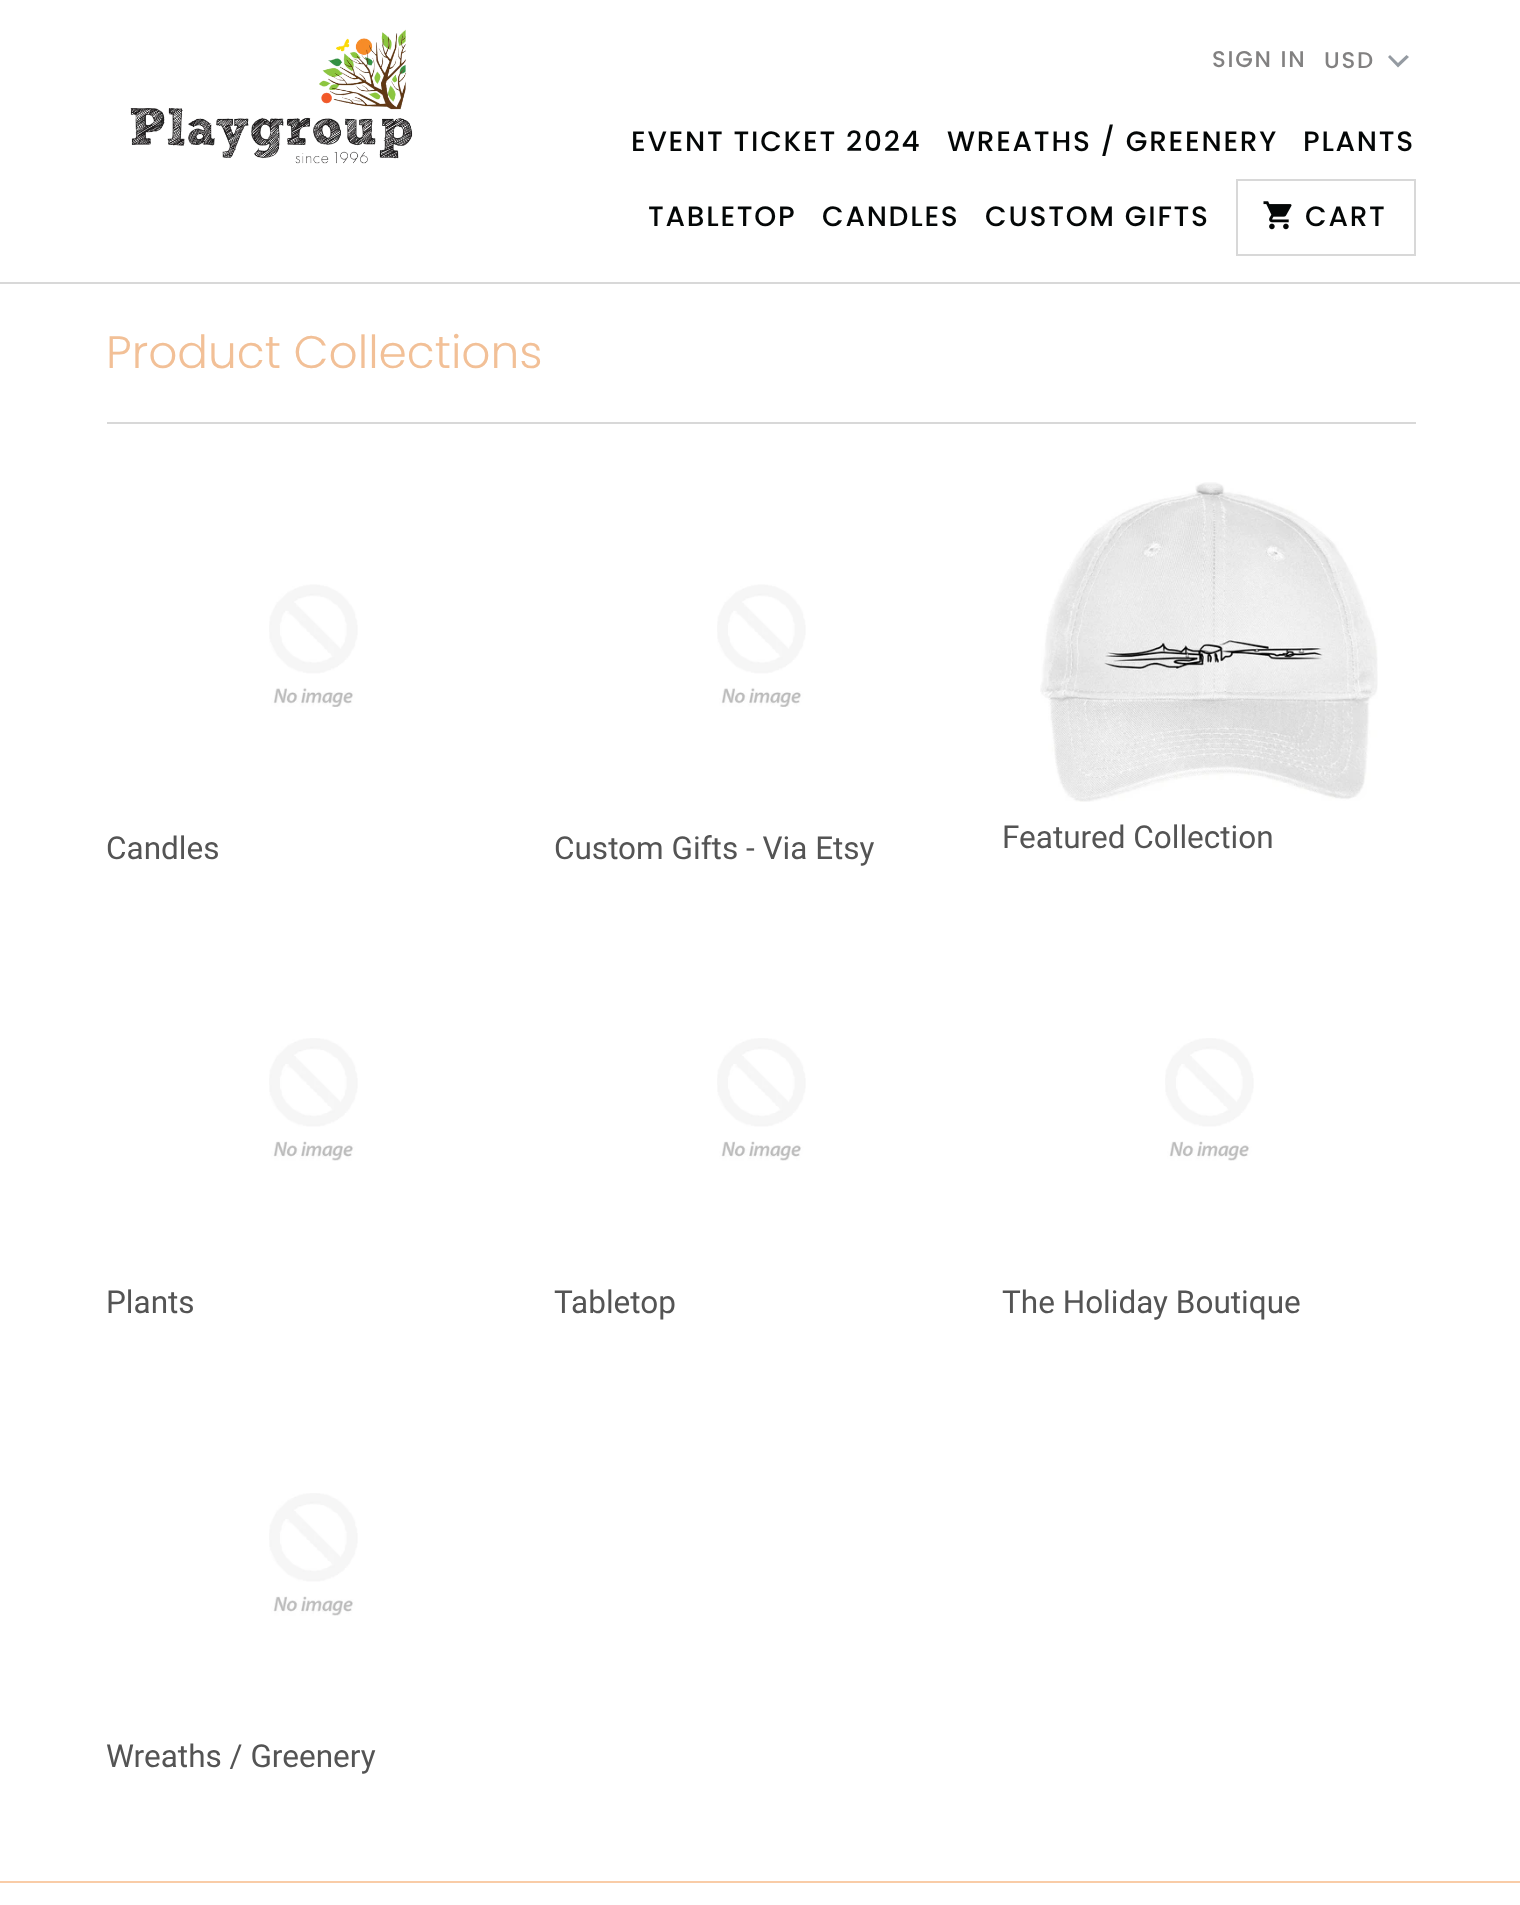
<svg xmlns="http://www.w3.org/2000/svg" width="1520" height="1905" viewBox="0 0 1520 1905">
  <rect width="100%" height="100%" fill="rgb(255,255,255)"/>
  <rect x="0" y="282" width="1520" height="2" fill="rgb(216,216,216)"/>
  <image x="130" y="29" width="283" height="135" href="pic1.png"/>
  <text x="1212" y="67" font-family="Poppins" font-size="22.75" font-weight="500" letter-spacing="1.75" fill="rgb(130,129,129)">SIGN IN</text>
  <path d="M1406.5 55L1398 63L1390 55L1388 57L1398 67.5L1409 57Z" fill="rgb(149,155,162)"/>
  <text x="1324" y="68" font-family="Poppins" font-size="22.75" font-weight="500" letter-spacing="1.75" fill="rgb(130,129,129)">USD</text>
  <g font-family="Poppins" font-size="28" font-weight="500" letter-spacing="1.75" fill="rgb(4,7,7)">
    <text x="631" y="151">EVENT TICKET 2024</text>
    <text x="947" y="151">WREATHS / GREENERY</text>
    <text x="1303" y="151">PLANTS</text>
    <text x="648" y="226">TABLETOP</text>
    <text x="822" y="226">CANDLES</text>
    <text x="985" y="226">CUSTOM GIFTS</text>
  </g>
  <rect x="1237" y="180" width="178" height="75" fill="none" stroke="rgb(216,216,216)" stroke-width="2"/>
  <image x="1263" y="201" width="29" height="29" href="pic2.png"/>
  <text x="1305" y="226" font-family="Poppins" font-size="28" font-weight="500" letter-spacing="1.75" fill="rgb(4,7,7)">CART</text>
  <rect x="107" y="422" width="1309" height="2" fill="rgb(216,216,216)"/>
  <text x="106" y="368" font-family="Poppins" font-size="45.5" font-weight="300" fill="rgb(242,192,151)">Product Collections</text>
  <image x="269" y="584" width="89" height="123" href="pic3.png"/>
  <text x="106" y="859" font-family="Roboto" font-size="31.5" fill="rgb(84,84,84)">Candles</text>
  <image x="717" y="584" width="89" height="123" href="pic3.png"/>
  <text x="554" y="859" font-family="Roboto" font-size="31.5" fill="rgb(84,84,84)">Custom Gifts - Via Etsy</text>
  <image x="1040" y="482" width="338" height="320" href="pic4.png"/>
  <text x="1002" y="848" font-family="Roboto" font-size="31.5" fill="rgb(84,84,84)">Featured Collection</text>
  <image x="269" y="1038" width="89" height="123" href="pic5.png"/>
  <text x="106" y="1313" font-family="Roboto" font-size="31.5" fill="rgb(84,84,84)">Plants</text>
  <image x="717" y="1038" width="89" height="123" href="pic5.png"/>
  <text x="554" y="1313" font-family="Roboto" font-size="31.5" fill="rgb(84,84,84)">Tabletop</text>
  <image x="1165" y="1038" width="89" height="123" href="pic6.png"/>
  <text x="1002" y="1313" font-family="Roboto" font-size="31.5" fill="rgb(84,84,84)">The Holiday Boutique</text>
  <image x="269" y="1493" width="89" height="123" href="pic5.png"/>
  <text x="106" y="1767" font-family="Roboto" font-size="31.5" fill="rgb(84,84,84)">Wreaths / Greenery</text>
  <rect x="0" y="1881" width="1520" height="2" fill="rgb(249,204,167)"/>
</svg>
